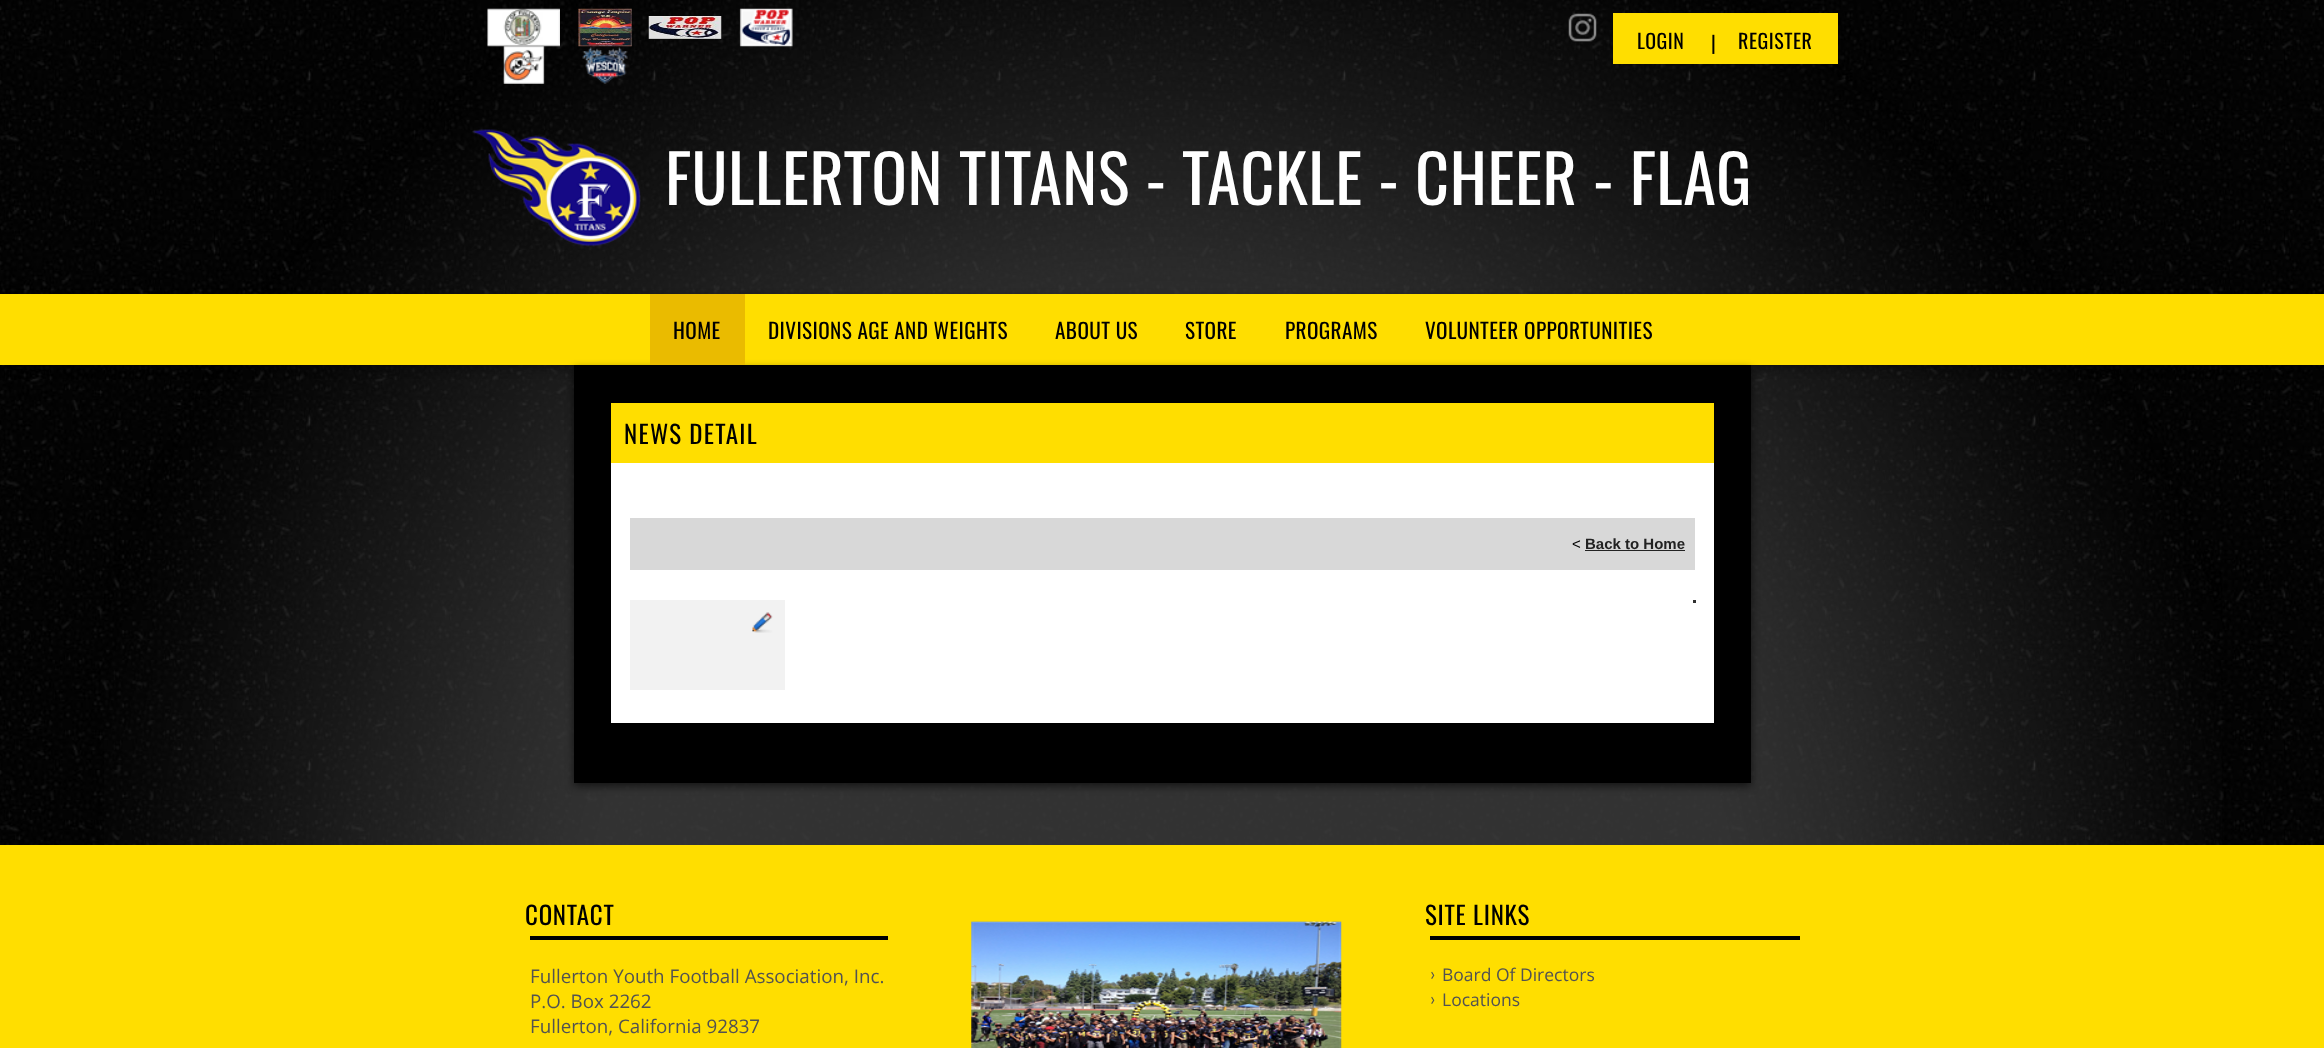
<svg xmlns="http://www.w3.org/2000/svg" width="2324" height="1048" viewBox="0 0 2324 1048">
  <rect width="100%" height="100%" fill="rgb(255,255,255)"/>
  <image x="0" y="0" width="2324" height="845" href="pic1.png"/>
  <image x="104" y="0" width="2118" height="845" href="pic2.png"/>
  <image x="487" y="8" width="73" height="39" href="pic3.png"/>
  <image x="578" y="8" width="54" height="39" href="pic4.png"/>
  <image x="648" y="16" width="74" height="23" href="pic5.png"/>
  <image x="739" y="8" width="54" height="39" href="pic6.png"/>
  <image x="503" y="46" width="42" height="38" href="pic7.png"/>
  <image x="582" y="47" width="46" height="37" href="pic8.png"/>
  <image x="1568" y="13" width="29" height="29" href="pic9.png"/>
  <rect x="1613" y="13" width="225" height="51" fill="rgb(255,222,0)"/>
  <g font-family="Oswald" font-size="20" letter-spacing="0.5" fill="rgb(0,0,0)">
    <text x="1637" y="49">LOGIN</text>
    <text x="1711" y="51">|</text>
    <text x="1738" y="49">REGISTER</text>
  </g>
  <image x="472" y="129" width="169" height="118" href="pic10.png"/>
  <text x="665" y="205" font-family="Oswald" font-size="66.25" letter-spacing="0.6" fill="rgb(255,255,255)">FULLERTON TITANS - TACKLE - CHEER - FLAG</text>
  <rect x="0" y="298" width="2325" height="71" fill="rgba(0,0,0,0.35)" filter="blur(4.5px)"/>
  <rect x="0" y="294" width="2324" height="71" fill="rgb(255,222,0)"/>
  <rect x="574" y="369" width="1177" height="417" fill="rgba(0,0,0,0.61)" filter="blur(4.5px)"/>
  <rect x="650" y="294" width="95" height="71" fill="rgb(234,187,0)"/>
  <g font-family="Oswald" font-size="21.25" letter-spacing="0.4" fill="rgb(0,0,0)">
    <text x="673" y="339">HOME</text>
    <text x="768" y="339">DIVISIONS AGE AND WEIGHTS</text>
    <text x="1055" y="339">ABOUT US</text>
    <text x="1185" y="339">STORE</text>
    <text x="1285" y="339">PROGRAMS</text>
    <text x="1425" y="339">VOLUNTEER OPPORTUNITIES</text>
  </g>
  <rect x="574" y="365" width="1177" height="418" fill="rgb(0,0,0)"/>
  <rect x="611" y="403" width="1103" height="60" fill="rgb(255,222,0)"/>
  <text x="624" y="444" font-family="Oswald" font-size="25" letter-spacing="1.25" fill="rgb(0,0,0)">NEWS DETAIL</text>
  <rect x="611" y="463" width="1103" height="260" fill="rgb(255,255,255)"/>
  <rect x="630" y="518" width="1065" height="52" fill="rgb(216,216,216)"/>
  <text x="1572" y="549" font-family="Liberation Sans" font-size="15" fill="rgb(0,0,0)">&lt;</text>
  <text x="1585" y="549" font-family="Liberation Sans" font-size="15" font-weight="bold" fill="rgb(34,34,34)">Back to Home</text>
  <rect x="1585" y="550" width="100" height="1" fill="rgb(34,34,34)"/>
  <rect x="630" y="600" width="155" height="90" fill="rgb(242,242,242)"/>
  <image x="752" y="612" width="21" height="21" href="pic11.png"/>
  <rect x="1693" y="600" width="3" height="3" fill="rgb(48,48,48)"/>
  <rect x="0" y="845" width="2324" height="203" fill="rgb(255,222,0)"/>
  <text x="525" y="925" font-family="Oswald" font-size="25" letter-spacing="0.75" fill="rgb(0,0,0)">CONTACT</text>
  <rect x="530" y="936" width="358" height="4" fill="rgb(0,0,0)"/>
  <g font-family="Open Sans" font-size="18.75" fill="rgb(82,82,82)">
    <text>
      <tspan x="530" y="983">Fullerton Youth Football Association, Inc.</tspan>
      <tspan x="530" y="1008">P.O. Box 2262</tspan>
      <tspan x="530" y="1033">Fullerton, California 92837</tspan>
    </text>
  </g>
  <image x="971" y="921" width="371" height="127" href="pic12.png"/>
  <text x="1425" y="925" font-family="Oswald" font-size="25" letter-spacing="0.75" fill="rgb(0,0,0)">SITE LINKS</text>
  <rect x="1430" y="936" width="370" height="4" fill="rgb(0,0,0)"/>
  <text x="1430" y="980" font-family="Lato" font-size="17.5" fill="rgb(82,82,82)">›</text>
  <text x="1442" y="981" font-family="Open Sans" font-size="17.5" fill="rgb(82,82,82)">Board Of Directors</text>
  <text x="1430" y="1005" font-family="Lato" font-size="17.5" fill="rgb(82,82,82)">›</text>
  <text x="1442" y="1006" font-family="Open Sans" font-size="17.5" fill="rgb(82,82,82)">Locations</text>
</svg>
